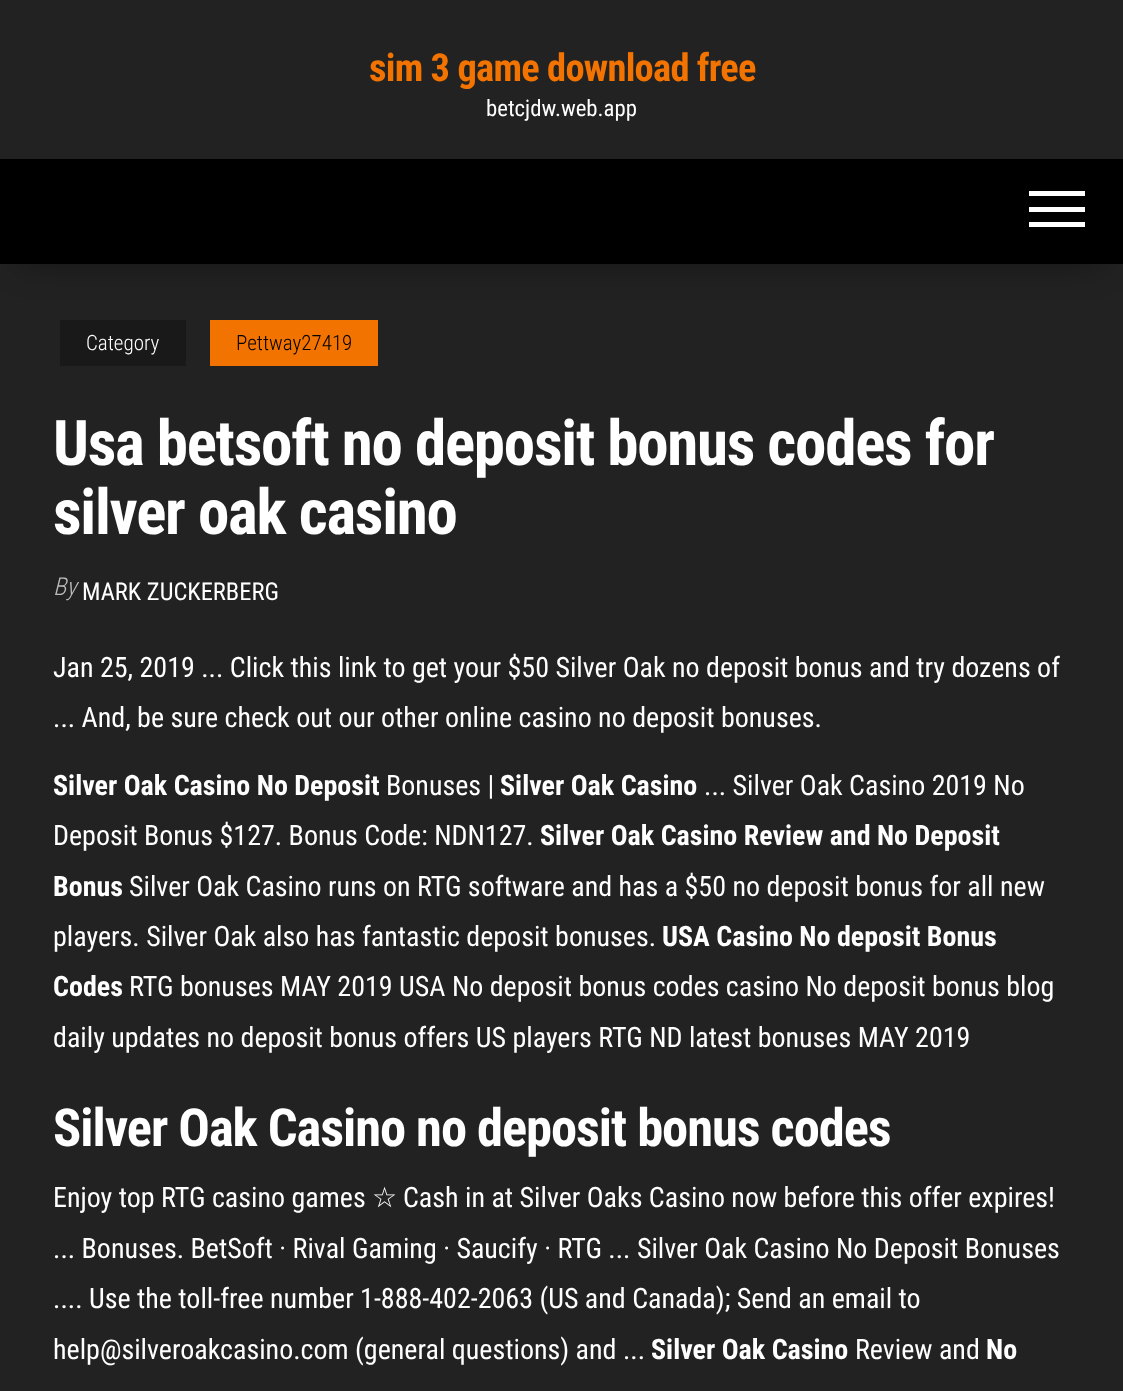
<svg xmlns="http://www.w3.org/2000/svg" width="1123" height="1391" viewBox="0 0 1123 1391">
  <rect width="100%" height="100%" fill="rgb(34,34,34)"/>
  <text x="369" y="81" font-family="Roboto Condensed" font-size="38.5" font-weight="bold" letter-spacing="-0.75" fill="rgb(242,115,0)">sim 3 game download free</text>
  <text x="486" y="116" font-family="Roboto Condensed" font-size="22.75" fill="rgb(255,255,255)">betcjdw.web.app</text>
  <rect x="21" y="198" width="1082" height="63" fill="rgba(0,0,0,0.42)" filter="blur(17.5px)"/>
  <rect x="0" y="159" width="1123" height="105" fill="rgb(0,0,0)"/>
  <rect x="1029" y="191" width="56" height="5" fill="rgb(255,255,255)"/>
  <rect x="1029" y="207" width="56" height="5" fill="rgb(255,255,255)"/>
  <rect x="1029" y="222" width="56" height="5" fill="rgb(255,255,255)"/>
  <rect x="60" y="320" width="126" height="46" fill="rgb(25,25,25)"/>
  <text x="86" y="350" font-family="Roboto Condensed" font-size="21" font-weight="300" fill="rgb(255,255,255)">Category</text>
  <rect x="210" y="320" width="168" height="46" fill="rgb(242,115,0)"/>
  <text x="236" y="350" font-family="Roboto Condensed" font-size="21" font-weight="300" fill="rgb(0,0,0)">Pettway27419</text>
  <g font-family="Roboto Condensed" font-size="63" font-weight="bold" letter-spacing="-1.25" fill="rgb(255,255,255)">
    <text>
      <tspan x="53" y="465">Usa betsoft no deposit bonus codes for</tspan>
      <tspan x="53" y="534">silver oak casino</tspan>
    </text>
  </g>
  <text x="53" y="595" font-family="Roboto Condensed" font-size="24.5" font-weight="300" font-style="italic" fill="rgb(189,189,189)">By</text>
  <text x="82" y="600" font-family="Roboto Condensed" font-size="24.5" fill="rgb(255,255,255)">MARK ZUCKERBERG</text>
  <g font-family="Roboto Condensed" font-size="28" fill="rgb(255,255,255)">
    <text>
      <tspan x="53" y="677">Jan 25, 2019 ... Click this link to get your $50 Silver Oak no deposit bonus and try dozens of</tspan>
      <tspan x="53" y="727">... And, be sure check out our other online casino no deposit bonuses.</tspan>
    </text>
  </g>
  <text x="53" y="795" font-family="Roboto Condensed" font-size="28" font-weight="bold" fill="rgb(255,255,255)">Silver Oak Casino No Deposit</text>
  <text x="386" y="795" font-family="Roboto Condensed" font-size="28" fill="rgb(255,255,255)">Bonuses |</text>
  <text x="500" y="795" font-family="Roboto Condensed" font-size="28" font-weight="bold" fill="rgb(255,255,255)">Silver Oak Casino</text>
  <g font-family="Roboto Condensed" font-size="28" fill="rgb(255,255,255)">
    <text x="704" y="795">... Silver Oak Casino 2019 No</text>
    <text x="53" y="845">Deposit Bonus $127. Bonus Code: NDN127.</text>
  </g>
  <g font-family="Roboto Condensed" font-size="28" font-weight="bold" fill="rgb(255,255,255)">
    <text x="540" y="845">Silver Oak Casino Review and No Deposit</text>
    <text x="53" y="896">Bonus</text>
  </g>
  <g font-family="Roboto Condensed" font-size="28" fill="rgb(255,255,255)">
    <text x="129" y="896">Silver Oak Casino runs on RTG software and has a $50 no deposit bonus for all new</text>
    <text x="53" y="946">players. Silver Oak also has fantastic deposit bonuses.</text>
  </g>
  <g font-family="Roboto Condensed" font-size="28" font-weight="bold" fill="rgb(255,255,255)">
    <text x="662" y="946">USA Casino No deposit Bonus</text>
    <text x="53" y="996">Codes</text>
  </g>
  <g font-family="Roboto Condensed" font-size="28" fill="rgb(255,255,255)">
    <text x="129" y="996">RTG bonuses MAY 2019 USA No deposit bonus codes casino No deposit bonus blog</text>
    <text x="53" y="1047">daily updates no deposit bonus offers US players RTG ND latest bonuses MAY 2019</text>
  </g>
  <text x="53" y="1146" font-family="Roboto Condensed" font-size="52.5" font-weight="bold" letter-spacing="-1.05" fill="rgb(255,255,255)">Silver Oak Casino no deposit bonus codes</text>
  <text x="53" y="1207" font-family="Roboto Condensed" font-size="28" fill="rgb(255,255,255)">Enjoy top RTG casino games</text>
  <text x="372" y="1207" font-family="DejaVu Sans" font-size="28" fill="rgb(255,255,255)">☆</text>
  <g font-family="Roboto Condensed" font-size="28" fill="rgb(255,255,255)">
    <text x="403" y="1207">Cash in at Silver Oaks Casino now before this offer expires!</text>
    <text>
      <tspan x="53" y="1258">... Bonuses. BetSoft · Rival Gaming · Saucify · RTG ... Silver Oak Casino No Deposit Bonuses</tspan>
      <tspan x="53" y="1308">.... Use the toll-free number 1-888-402-2063 (US and Canada); Send an email to</tspan>
      <tspan x="53" y="1359">help@silveroakcasino.com (general questions) and ...</tspan>
    </text>
  </g>
  <text x="651" y="1359" font-family="Roboto Condensed" font-size="28" font-weight="bold" fill="rgb(255,255,255)">Silver Oak Casino</text>
  <text x="855" y="1359" font-family="Roboto Condensed" font-size="28" fill="rgb(255,255,255)">Review and</text>
  <text x="986" y="1359" font-family="Roboto Condensed" font-size="28" font-weight="bold" fill="rgb(255,255,255)">No</text>
</svg>
